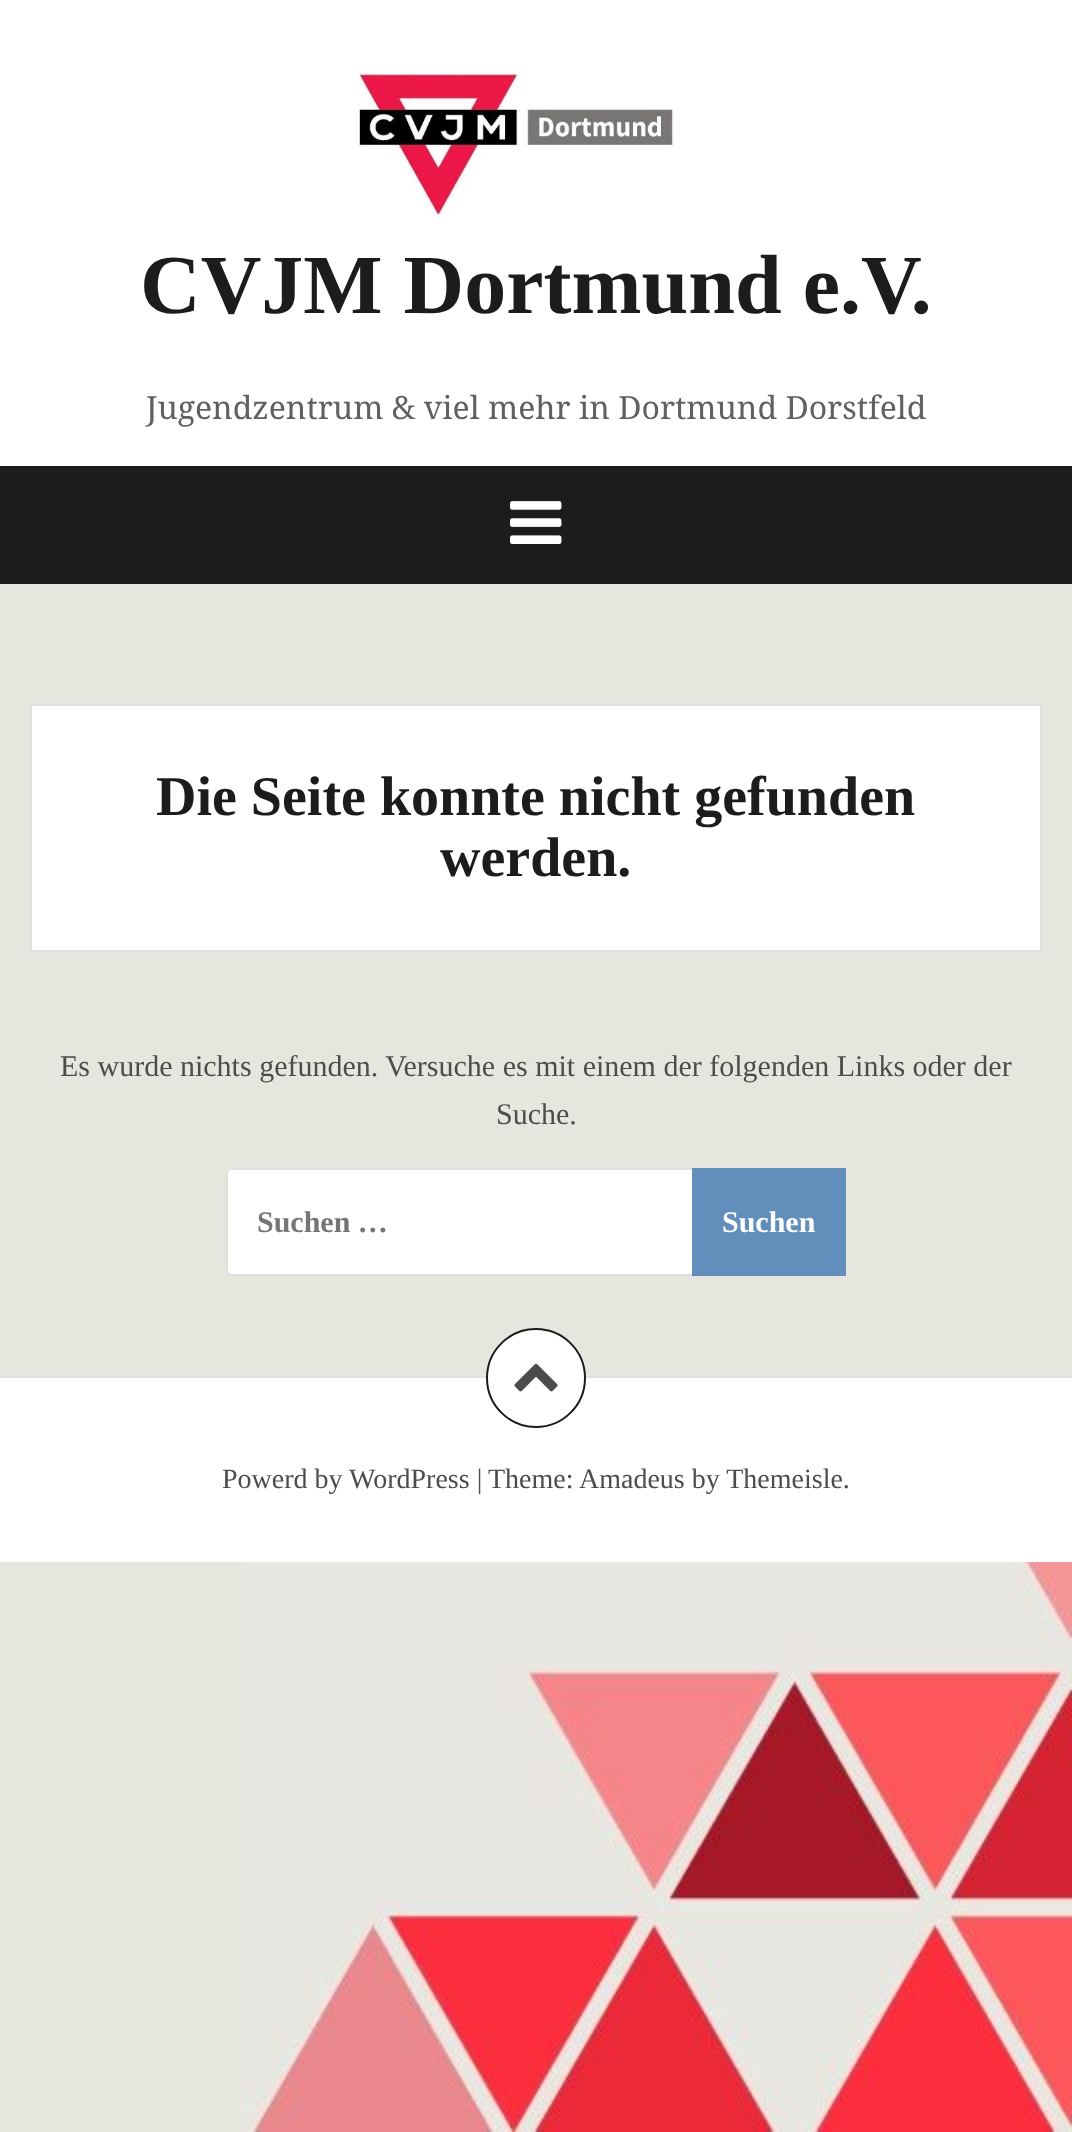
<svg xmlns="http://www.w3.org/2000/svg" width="1072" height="2132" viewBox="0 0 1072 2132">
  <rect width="100%" height="100%" fill="rgb(230,230,223)"/>
  <image x="241" y="1562" width="831" height="570" href="pic1.png"/>
  <rect x="0" y="0" width="1072" height="466" fill="rgb(255,255,255)"/>
  <image x="358" y="72" width="316" height="150" href="pic2.png"/>
  <text x="140" y="313" font-family="Liberation Serif" font-size="84" font-weight="bold" fill="rgb(28,28,28)">CVJM Dortmund e.V.</text>
  <text x="146" y="419" font-family="Noto Serif" font-size="32" fill="rgb(96,96,93)">Jugendzentrum &amp; viel mehr in Dortmund Dorstfeld</text>
  <rect x="0" y="466" width="1072" height="118" fill="rgb(28,28,28)"/>
  <image x="510" y="501" width="52" height="43" href="pic3.png"/>
  <rect x="31" y="705" width="1010" height="246" fill="rgb(255,255,255)" stroke="rgb(224,224,224)" stroke-width="2"/>
  <g font-family="Liberation Serif" font-size="56" font-weight="bold" fill="rgb(28,28,28)">
    <text x="156" y="815">Die Seite konnte nicht gefunden</text>
    <text x="440" y="876">werden.</text>
  </g>
  <g font-family="Liberation Serif" font-size="30" fill="rgb(76,76,76)">
    <text x="60" y="1076">Es wurde nichts gefunden. Versuche es mit einem der folgenden Links oder der</text>
    <text x="496" y="1124">Suche.</text>
  </g>
  <rect x="227" y="1169" width="516" height="106" rx="5" fill="rgb(255,255,255)" stroke="rgb(224,224,224)" stroke-width="2"/>
  <text x="257" y="1232" font-family="Liberation Serif" font-size="30" font-weight="bold" fill="rgb(117,117,117)">Suchen …</text>
  <rect x="692" y="1168" width="154" height="108" fill="rgb(97,142,186)"/>
  <text x="722" y="1232" font-family="Liberation Serif" font-size="30" font-weight="bold" fill="rgb(255,255,255)">Suchen</text>
  <rect x="0" y="1378" width="1072" height="184" fill="rgb(255,255,255)"/>
  <rect x="0" y="1376" width="1072" height="2" fill="rgb(224,224,224)"/>
  <circle cx="536" cy="1378" r="49" fill="rgb(255,255,255)" stroke="rgb(28,28,28)" stroke-width="2"/>
  <image x="514" y="1363" width="44" height="29" href="pic4.png"/>
  <g font-family="Liberation Serif" font-size="28" fill="rgb(76,76,76)">
    <text x="222" y="1488">Powerd by WordPress |</text>
    <text x="488" y="1488">Theme:</text>
    <text x="579" y="1488">Amadeus by Themeisle.</text>
  </g>
</svg>
